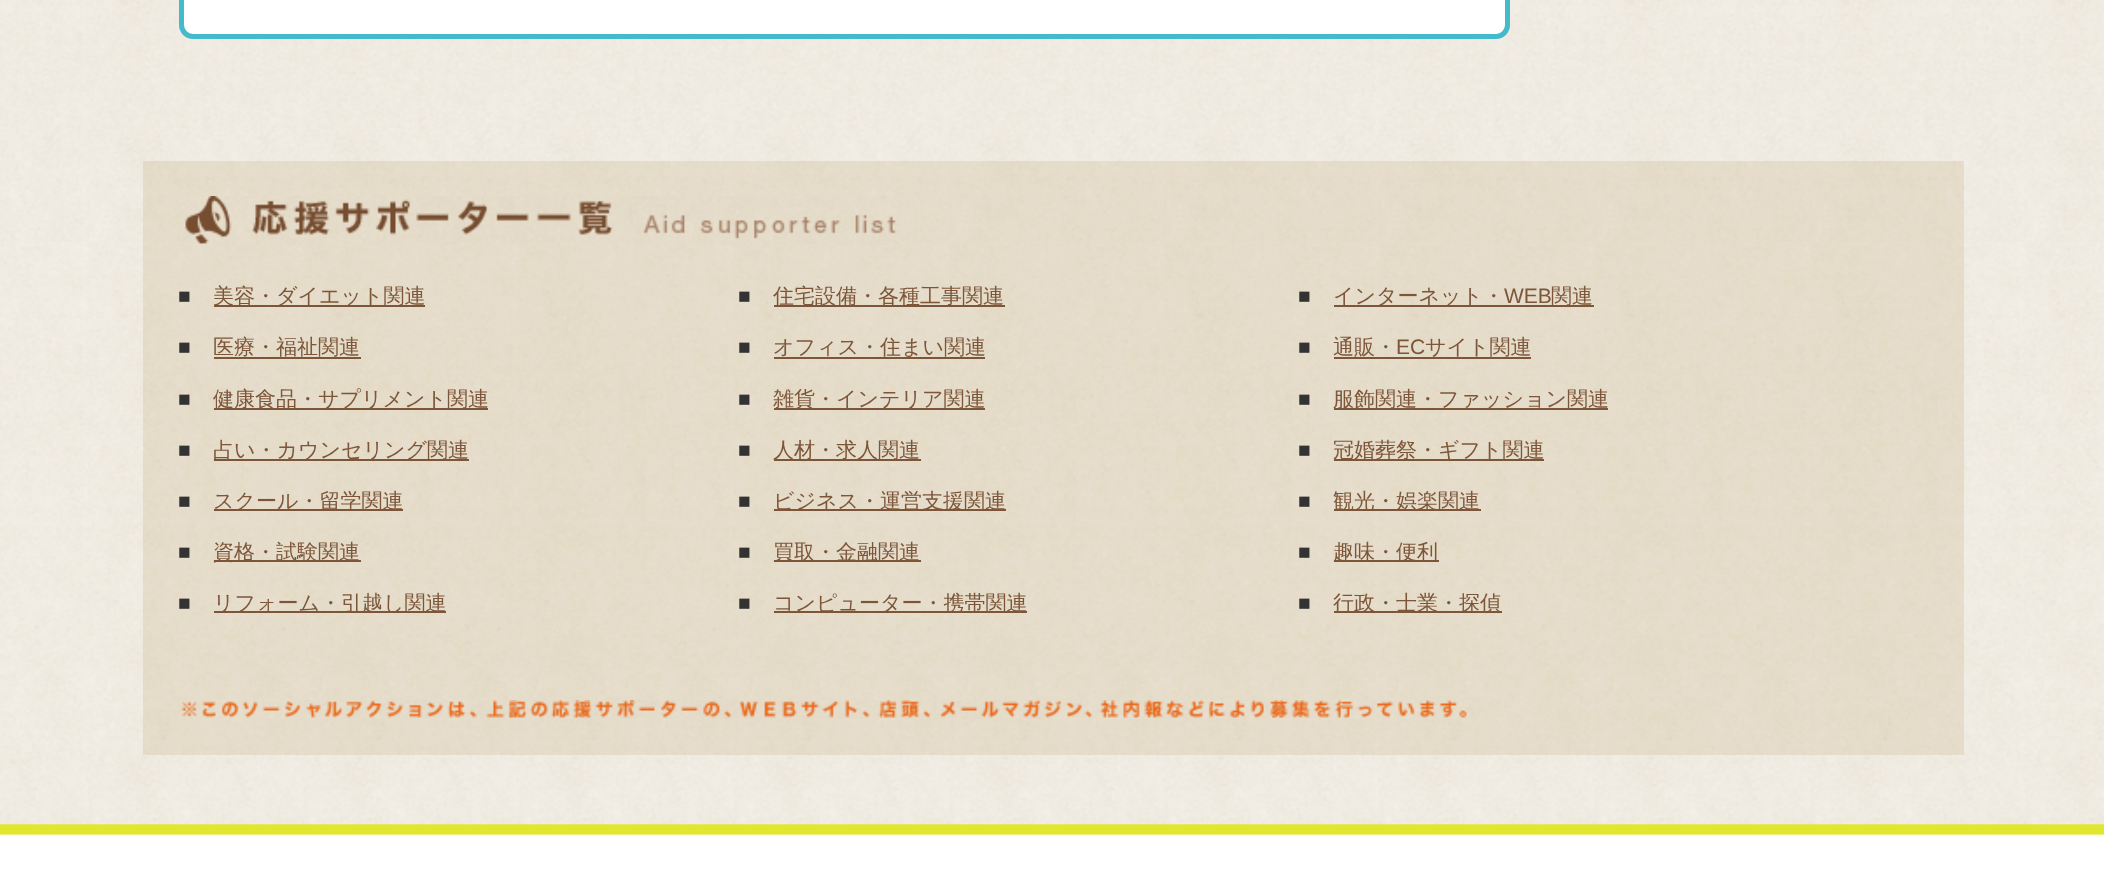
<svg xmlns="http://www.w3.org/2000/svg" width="2104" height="871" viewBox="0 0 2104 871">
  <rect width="100%" height="100%" fill="rgb(255,255,255)"/>
  <image x="0" y="0" width="2104" height="825" href="pic1.png"/>
  <rect x="181.5" y="-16.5" width="1326" height="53" rx="11.5" fill="rgb(255,255,255)" stroke="rgb(67,187,202)" stroke-width="5"/>
  <rect x="143" y="161" width="1821" height="594" fill="rgba(174,134,67,0.15)"/>
  <image x="179" y="196" width="722" height="49" href="pic2.png"/>
  <text x="178" y="303" font-family="Liberation Sans" font-size="21" fill="rgb(51,51,51)">■</text>
  <rect x="214" y="305" width="211" height="2" fill="rgb(125,86,58)"/>
  <text x="213" y="303" font-family="WenQuanYi Zen Hei" font-size="21" font-weight="500" fill="rgb(125,86,58)">美容・ダイエット関連</text>
  <text x="178" y="354" font-family="Liberation Sans" font-size="21" fill="rgb(51,51,51)">■</text>
  <text x="213" y="354" font-family="WenQuanYi Zen Hei" font-size="21" font-weight="500" fill="rgb(125,86,58)">医療・福祉関連</text>
  <rect x="214" y="357" width="147" height="2" fill="rgb(125,86,58)"/>
  <text x="178" y="406" font-family="Liberation Sans" font-size="21" fill="rgb(51,51,51)">■</text>
  <rect x="214" y="408" width="274" height="2" fill="rgb(125,86,58)"/>
  <text x="213" y="406" font-family="WenQuanYi Zen Hei" font-size="21" font-weight="500" fill="rgb(125,86,58)">健康食品・サプリメント関連</text>
  <text x="178" y="457" font-family="Liberation Sans" font-size="21" fill="rgb(51,51,51)">■</text>
  <rect x="214" y="459" width="255" height="2" fill="rgb(125,86,58)"/>
  <text x="213" y="457" font-family="WenQuanYi Zen Hei" font-size="21" font-weight="500" fill="rgb(125,86,58)">占い・カウンセリング関連</text>
  <text x="178" y="508" font-family="Liberation Sans" font-size="21" fill="rgb(51,51,51)">■</text>
  <rect x="214" y="509" width="189" height="2" fill="rgb(125,86,58)"/>
  <text x="213" y="508" font-family="WenQuanYi Zen Hei" font-size="21" font-weight="500" fill="rgb(125,86,58)">スクール・留学関連</text>
  <text x="178" y="559" font-family="Liberation Sans" font-size="21" fill="rgb(51,51,51)">■</text>
  <rect x="214" y="560" width="147" height="2" fill="rgb(125,86,58)"/>
  <text x="213" y="559" font-family="WenQuanYi Zen Hei" font-size="21" font-weight="500" fill="rgb(125,86,58)">資格・試験関連</text>
  <text x="178" y="610" font-family="Liberation Sans" font-size="21" fill="rgb(51,51,51)">■</text>
  <rect x="214" y="611" width="232" height="2" fill="rgb(125,86,58)"/>
  <text x="213" y="610" font-family="WenQuanYi Zen Hei" font-size="21" font-weight="500" fill="rgb(125,86,58)">リフォーム・引越し関連</text>
  <text x="738" y="303" font-family="Liberation Sans" font-size="21" fill="rgb(51,51,51)">■</text>
  <rect x="774" y="305" width="231" height="2" fill="rgb(125,86,58)"/>
  <text x="773" y="303" font-family="WenQuanYi Zen Hei" font-size="21" font-weight="500" fill="rgb(125,86,58)">住宅設備・各種工事関連</text>
  <text x="738" y="354" font-family="Liberation Sans" font-size="21" fill="rgb(51,51,51)">■</text>
  <rect x="774" y="357" width="211" height="2" fill="rgb(125,86,58)"/>
  <text x="773" y="354" font-family="WenQuanYi Zen Hei" font-size="21" font-weight="500" fill="rgb(125,86,58)">オフィス・住まい関連</text>
  <text x="738" y="406" font-family="Liberation Sans" font-size="21" fill="rgb(51,51,51)">■</text>
  <rect x="774" y="408" width="211" height="2" fill="rgb(125,86,58)"/>
  <text x="773" y="406" font-family="WenQuanYi Zen Hei" font-size="21" font-weight="500" fill="rgb(125,86,58)">雑貨・インテリア関連</text>
  <text x="738" y="457" font-family="Liberation Sans" font-size="21" fill="rgb(51,51,51)">■</text>
  <rect x="774" y="459" width="147" height="2" fill="rgb(125,86,58)"/>
  <text x="773" y="457" font-family="WenQuanYi Zen Hei" font-size="21" font-weight="500" fill="rgb(125,86,58)">人材・求人関連</text>
  <text x="738" y="508" font-family="Liberation Sans" font-size="21" fill="rgb(51,51,51)">■</text>
  <rect x="774" y="509" width="232" height="2" fill="rgb(125,86,58)"/>
  <text x="773" y="508" font-family="WenQuanYi Zen Hei" font-size="21" font-weight="500" fill="rgb(125,86,58)">ビジネス・運営支援関連</text>
  <text x="738" y="559" font-family="Liberation Sans" font-size="21" fill="rgb(51,51,51)">■</text>
  <rect x="774" y="560" width="147" height="2" fill="rgb(125,86,58)"/>
  <text x="773" y="559" font-family="WenQuanYi Zen Hei" font-size="21" font-weight="500" fill="rgb(125,86,58)">買取・金融関連</text>
  <text x="738" y="610" font-family="Liberation Sans" font-size="21" fill="rgb(51,51,51)">■</text>
  <rect x="774" y="611" width="253" height="2" fill="rgb(125,86,58)"/>
  <text x="773" y="610" font-family="WenQuanYi Zen Hei" font-size="21" font-weight="500" fill="rgb(125,86,58)">コンピューター・携帯関連</text>
  <text x="1298" y="303" font-family="Liberation Sans" font-size="21" fill="rgb(51,51,51)">■</text>
  <rect x="1334" y="305" width="260" height="2" fill="rgb(125,86,58)"/>
  <text x="1333" y="303" font-family="WenQuanYi Zen Hei" font-size="21" font-weight="500" fill="rgb(125,86,58)">インターネット・</text>
  <text x="1504" y="303" font-family="Liberation Sans" font-size="21" fill="rgb(125,86,58)">WEB</text>
  <text x="1551" y="303" font-family="WenQuanYi Zen Hei" font-size="21" font-weight="500" fill="rgb(125,86,58)">関連</text>
  <text x="1298" y="354" font-family="Liberation Sans" font-size="21" fill="rgb(51,51,51)">■</text>
  <text x="1333" y="354" font-family="WenQuanYi Zen Hei" font-size="21" font-weight="500" fill="rgb(125,86,58)">通販・</text>
  <text x="1396" y="354" font-family="Liberation Sans" font-size="21" fill="rgb(125,86,58)">EC</text>
  <rect x="1334" y="357" width="197" height="2" fill="rgb(125,86,58)"/>
  <text x="1425" y="354" font-family="WenQuanYi Zen Hei" font-size="21" font-weight="500" fill="rgb(125,86,58)">サイト関連</text>
  <text x="1298" y="406" font-family="Liberation Sans" font-size="21" fill="rgb(51,51,51)">■</text>
  <rect x="1334" y="408" width="274" height="2" fill="rgb(125,86,58)"/>
  <text x="1333" y="406" font-family="WenQuanYi Zen Hei" font-size="21" font-weight="500" fill="rgb(125,86,58)">服飾関連・ファッション関連</text>
  <text x="1298" y="457" font-family="Liberation Sans" font-size="21" fill="rgb(51,51,51)">■</text>
  <rect x="1334" y="459" width="210" height="2" fill="rgb(125,86,58)"/>
  <text x="1333" y="457" font-family="WenQuanYi Zen Hei" font-size="21" font-weight="500" fill="rgb(125,86,58)">冠婚葬祭・ギフト関連</text>
  <text x="1298" y="508" font-family="Liberation Sans" font-size="21" fill="rgb(51,51,51)">■</text>
  <rect x="1334" y="509" width="147" height="2" fill="rgb(125,86,58)"/>
  <text x="1333" y="508" font-family="WenQuanYi Zen Hei" font-size="21" font-weight="500" fill="rgb(125,86,58)">観光・娯楽関連</text>
  <text x="1298" y="559" font-family="Liberation Sans" font-size="21" fill="rgb(51,51,51)">■</text>
  <rect x="1334" y="560" width="105" height="2" fill="rgb(125,86,58)"/>
  <text x="1333" y="559" font-family="WenQuanYi Zen Hei" font-size="21" font-weight="500" fill="rgb(125,86,58)">趣味・便利</text>
  <text x="1298" y="610" font-family="Liberation Sans" font-size="21" fill="rgb(51,51,51)">■</text>
  <rect x="1334" y="611" width="168" height="2" fill="rgb(125,86,58)"/>
  <text x="1333" y="610" font-family="WenQuanYi Zen Hei" font-size="21" font-weight="500" fill="rgb(125,86,58)">行政・士業・探偵</text>
  <image x="179" y="700" width="1296" height="19" href="pic3.png"/>
  <image x="0" y="824" width="2104" height="47" href="pic4.png"/>
</svg>
